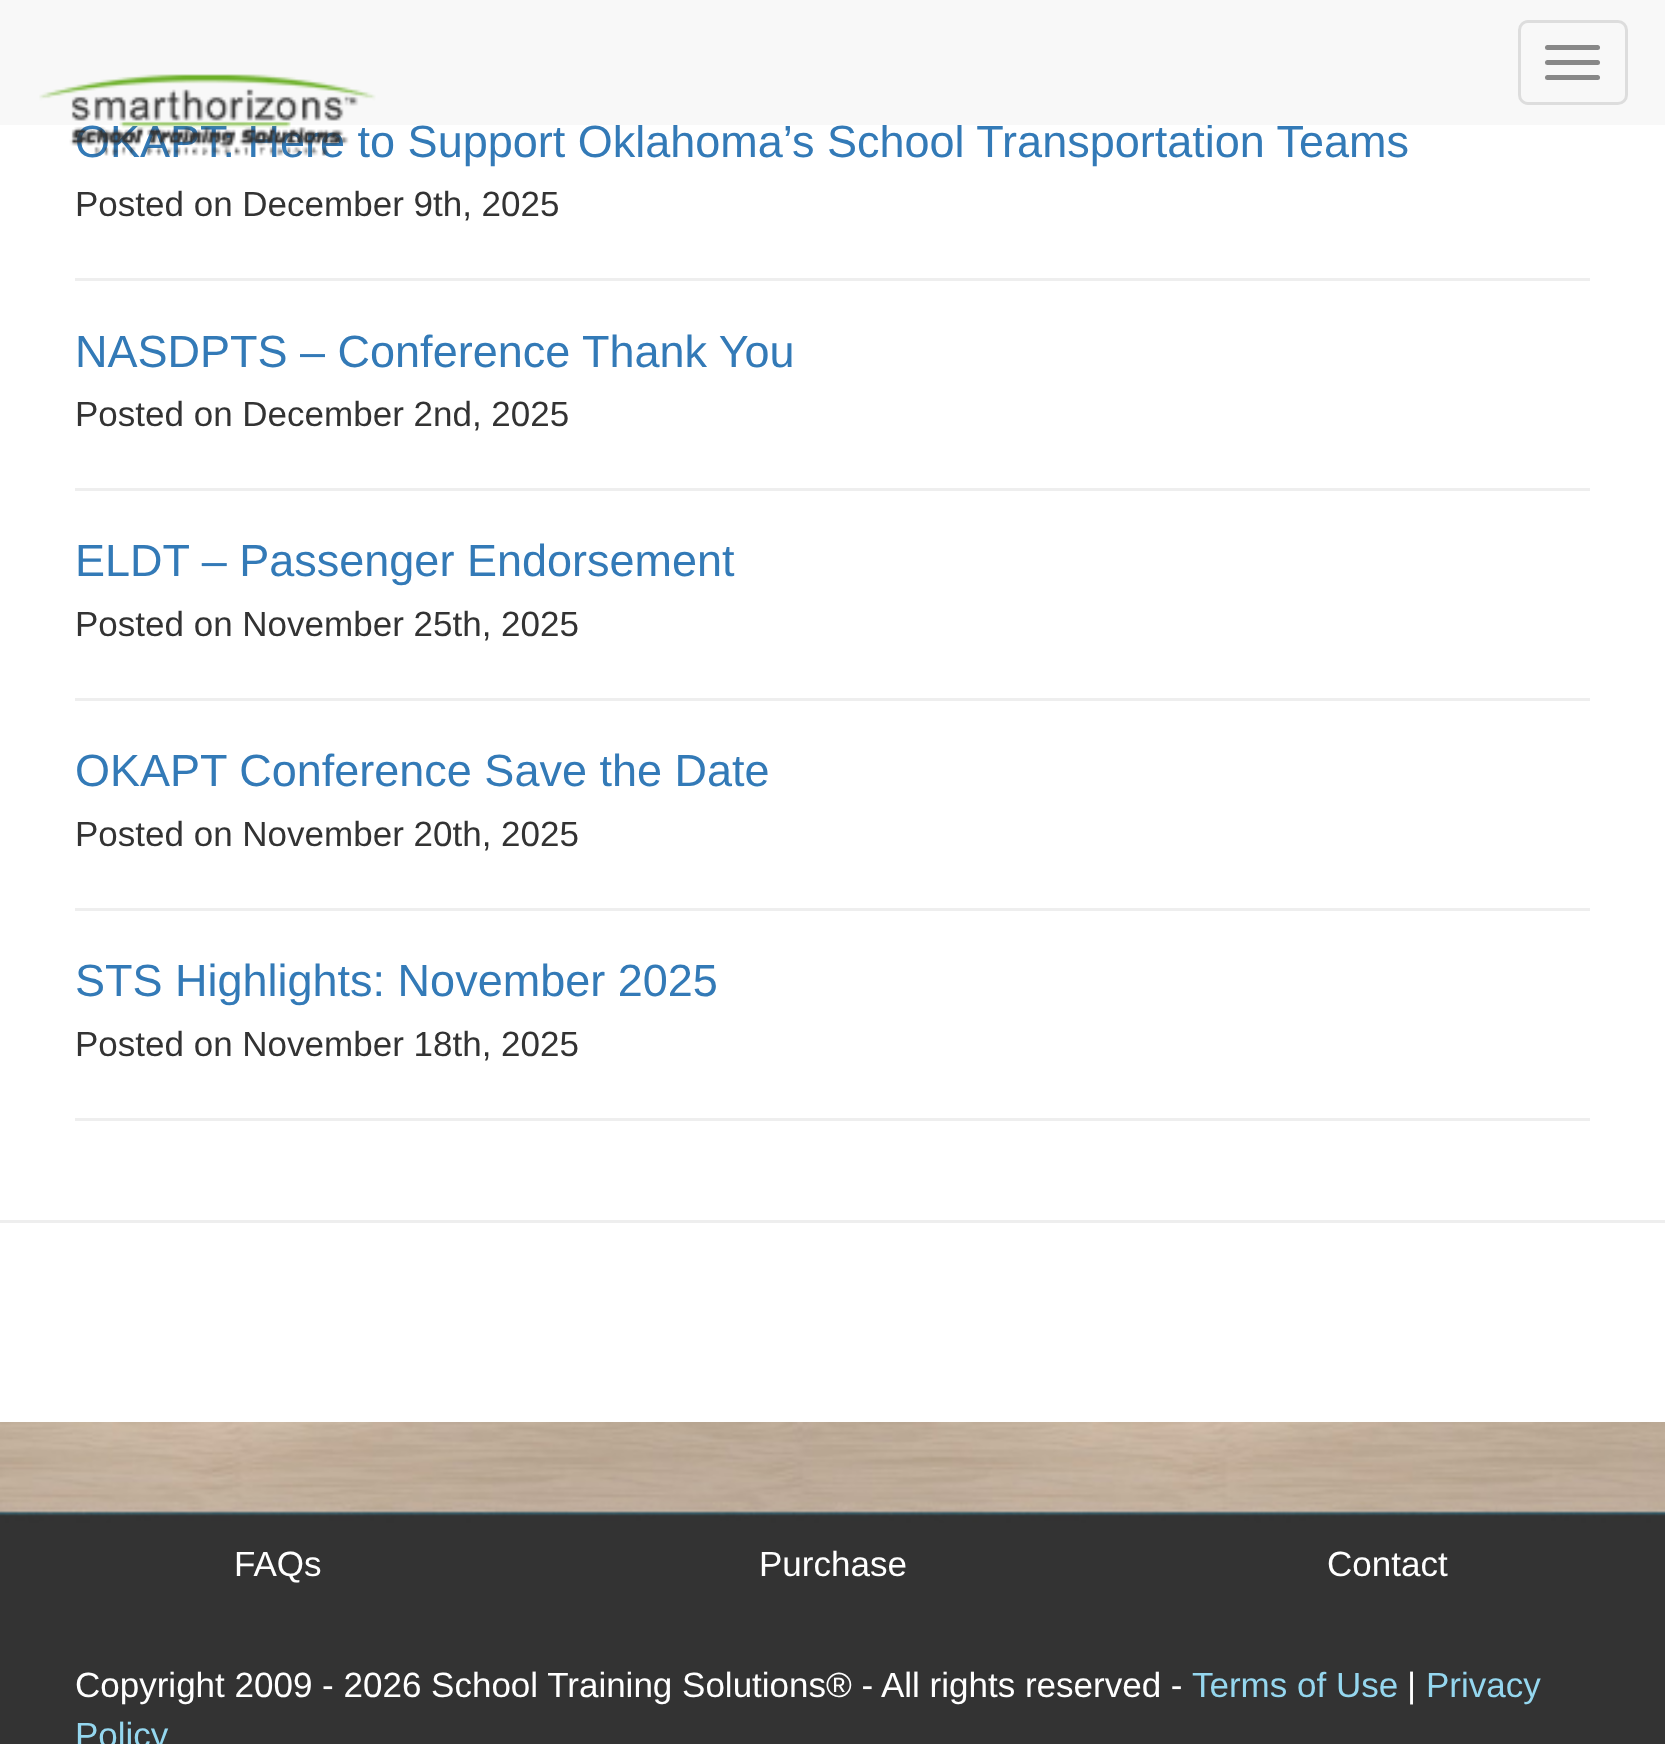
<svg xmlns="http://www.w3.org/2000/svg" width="1665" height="1744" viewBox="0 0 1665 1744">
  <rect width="100%" height="100%" fill="rgb(255,255,255)"/>
  <text x="75" y="157" font-family="Liberation Sans" font-size="45" fill="rgb(51,122,183)">OKAPT: Here to Support Oklahoma’s School Transportation Teams</text>
  <rect x="0" y="0" width="1665" height="125" fill="rgb(248,248,248)"/>
  <rect x="1519.5" y="21.5" width="107" height="82" rx="8.5" fill="none" stroke="rgb(221,221,221)" stroke-width="3"/>
  <rect x="1545" y="45" width="55" height="5" rx="2.5" fill="rgb(136,136,136)"/>
  <rect x="1545" y="60" width="55" height="5" rx="2.5" fill="rgb(136,136,136)"/>
  <rect x="1545" y="75" width="55" height="5" rx="2.5" fill="rgb(136,136,136)"/>
  <image x="39" y="74" width="337" height="82" href="pic1.png"/>
  <text x="75" y="216" font-family="Liberation Sans" font-size="35" fill="rgb(51,51,51)">Posted on December 9th, 2025</text>
  <rect x="75" y="278" width="1515" height="3" fill="rgb(238,238,238)"/>
  <text x="75" y="367" font-family="Liberation Sans" font-size="45" fill="rgb(51,122,183)">NASDPTS – Conference Thank You</text>
  <text x="75" y="426" font-family="Liberation Sans" font-size="35" fill="rgb(51,51,51)">Posted on December 2nd, 2025</text>
  <rect x="75" y="488" width="1515" height="3" fill="rgb(238,238,238)"/>
  <text x="75" y="576" font-family="Liberation Sans" font-size="45" fill="rgb(51,122,183)">ELDT – Passenger Endorsement</text>
  <text x="75" y="636" font-family="Liberation Sans" font-size="35" fill="rgb(51,51,51)">Posted on November 25th, 2025</text>
  <rect x="75" y="698" width="1515" height="3" fill="rgb(238,238,238)"/>
  <text x="75" y="786" font-family="Liberation Sans" font-size="45" fill="rgb(51,122,183)">OKAPT Conference Save the Date</text>
  <text x="75" y="846" font-family="Liberation Sans" font-size="35" fill="rgb(51,51,51)">Posted on November 20th, 2025</text>
  <rect x="75" y="908" width="1515" height="3" fill="rgb(238,238,238)"/>
  <text x="75" y="996" font-family="Liberation Sans" font-size="45" fill="rgb(51,122,183)">STS Highlights: November 2025</text>
  <text x="75" y="1056" font-family="Liberation Sans" font-size="35" fill="rgb(51,51,51)">Posted on November 18th, 2025</text>
  <rect x="75" y="1118" width="1515" height="3" fill="rgb(238,238,238)"/>
  <rect x="0" y="1220" width="1665" height="3" fill="rgb(238,238,238)"/>
  <image x="0" y="1422" width="1665" height="322" href="pic2.png"/>
  <g font-family="Liberation Sans" font-size="35" fill="rgb(255,255,255)">
    <text x="234" y="1576">FAQs</text>
    <text x="759" y="1576">Purchase</text>
    <text x="1327" y="1576">Contact</text>
    <text x="75" y="1697">Copyright 2009 - 2026 School Training Solutions® - All rights reserved -</text>
  </g>
  <text x="1192" y="1697" font-family="Liberation Sans" font-size="35" fill="rgb(149,215,239)">Terms of Use</text>
  <text x="1407" y="1697" font-family="Liberation Sans" font-size="35" fill="rgb(255,255,255)">|</text>
  <g font-family="Liberation Sans" font-size="35" fill="rgb(149,215,239)">
    <text x="1426" y="1697">Privacy</text>
    <text x="75" y="1747">Policy</text>
  </g>
</svg>
